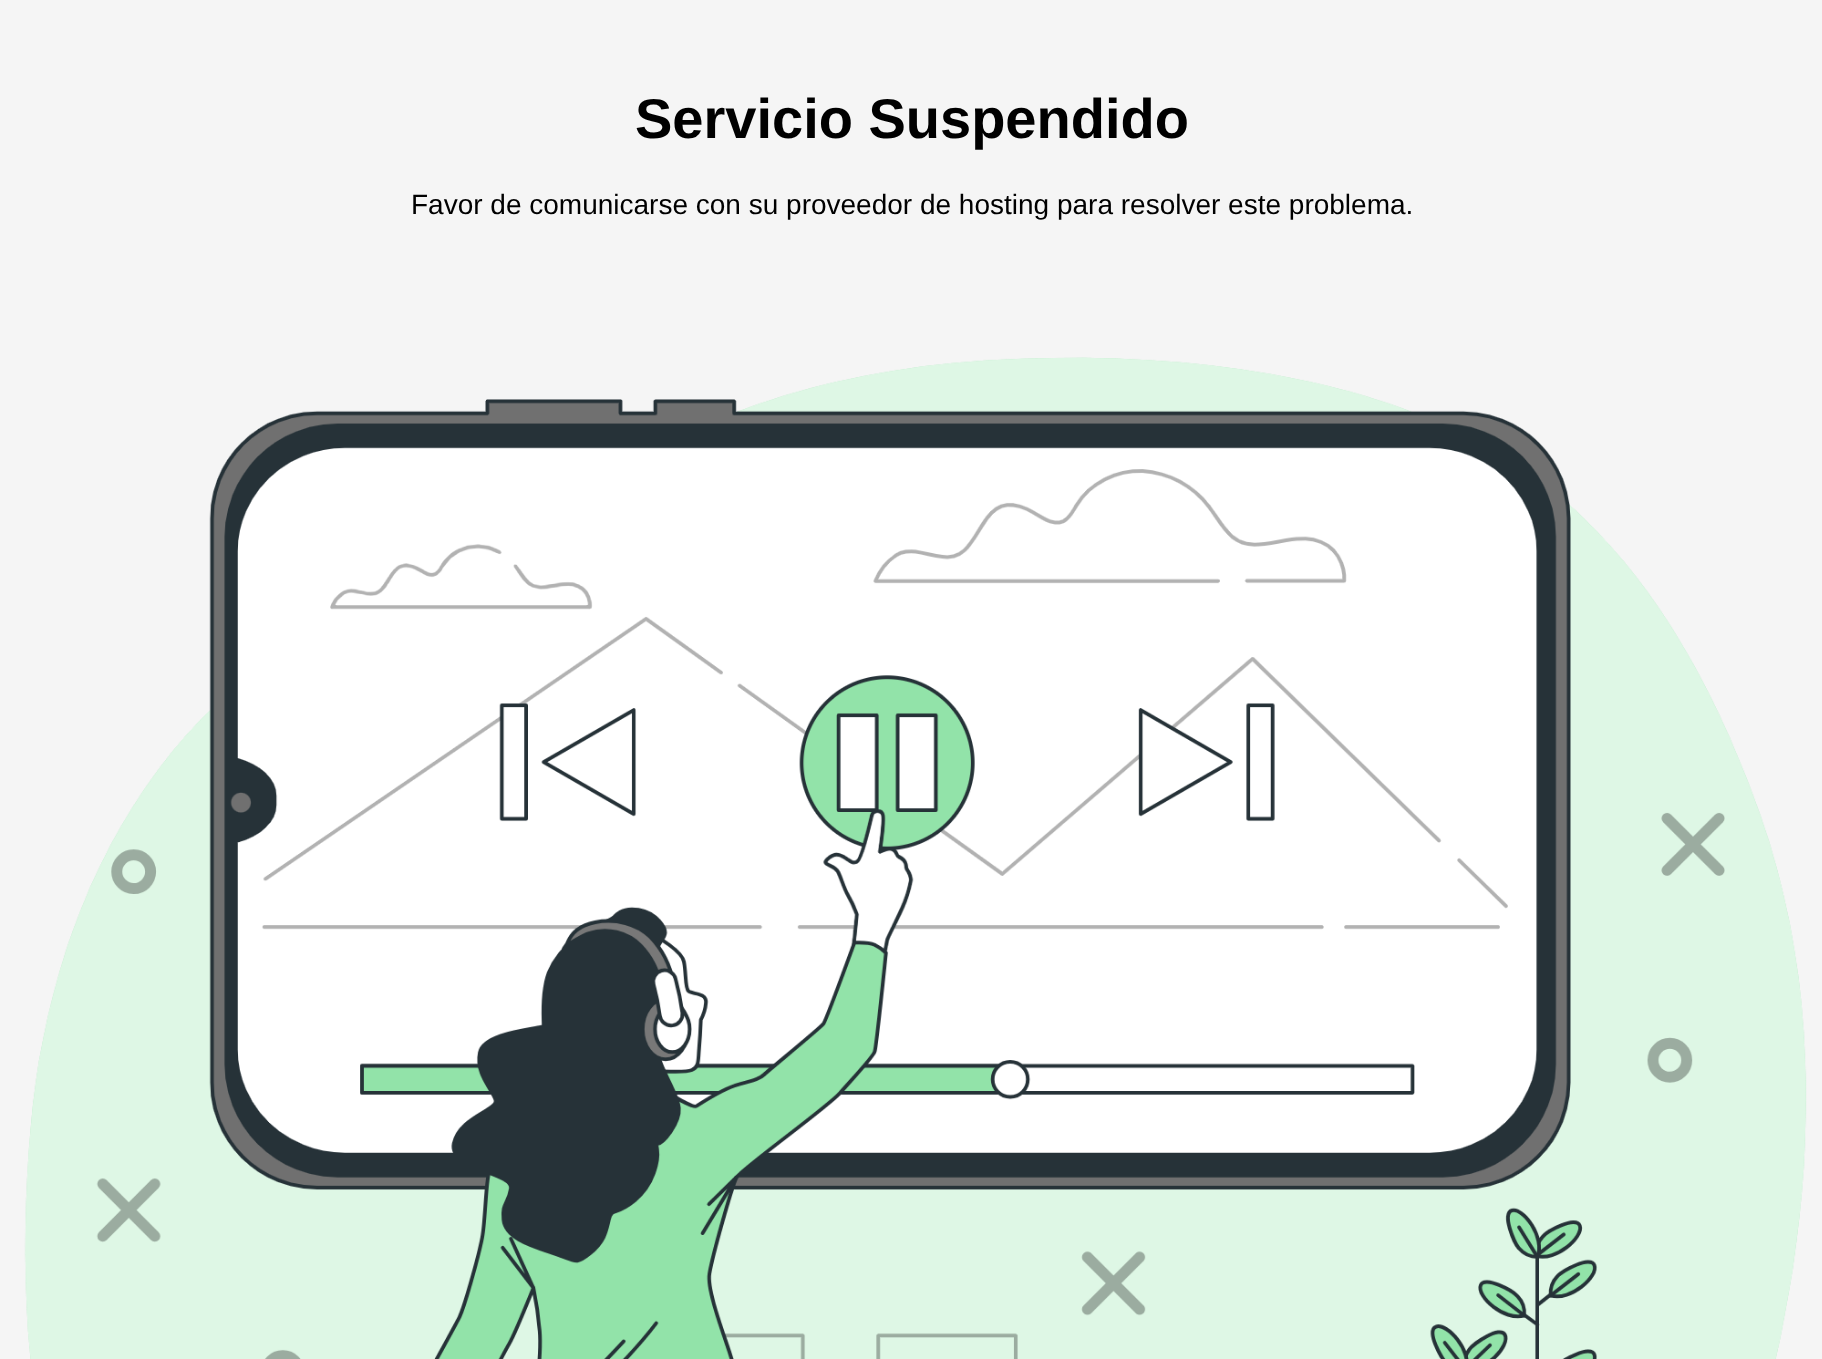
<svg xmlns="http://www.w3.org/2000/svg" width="1822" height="1359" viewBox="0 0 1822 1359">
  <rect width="100%" height="100%" fill="rgb(245,245,245)"/>
  <text x="635" y="138" font-family="Liberation Sans" font-size="56" font-weight="bold" fill="rgb(0,0,0)">Servicio Suspendido</text>
  <text x="411" y="214" font-family="Liberation Sans" font-size="28" fill="rgb(0,0,0)">Favor de comunicarse con su proveedor de hosting para resolver este problema.</text>
  <image x="24" y="357" width="1783" height="1002" href="pic1.png"/>
</svg>
